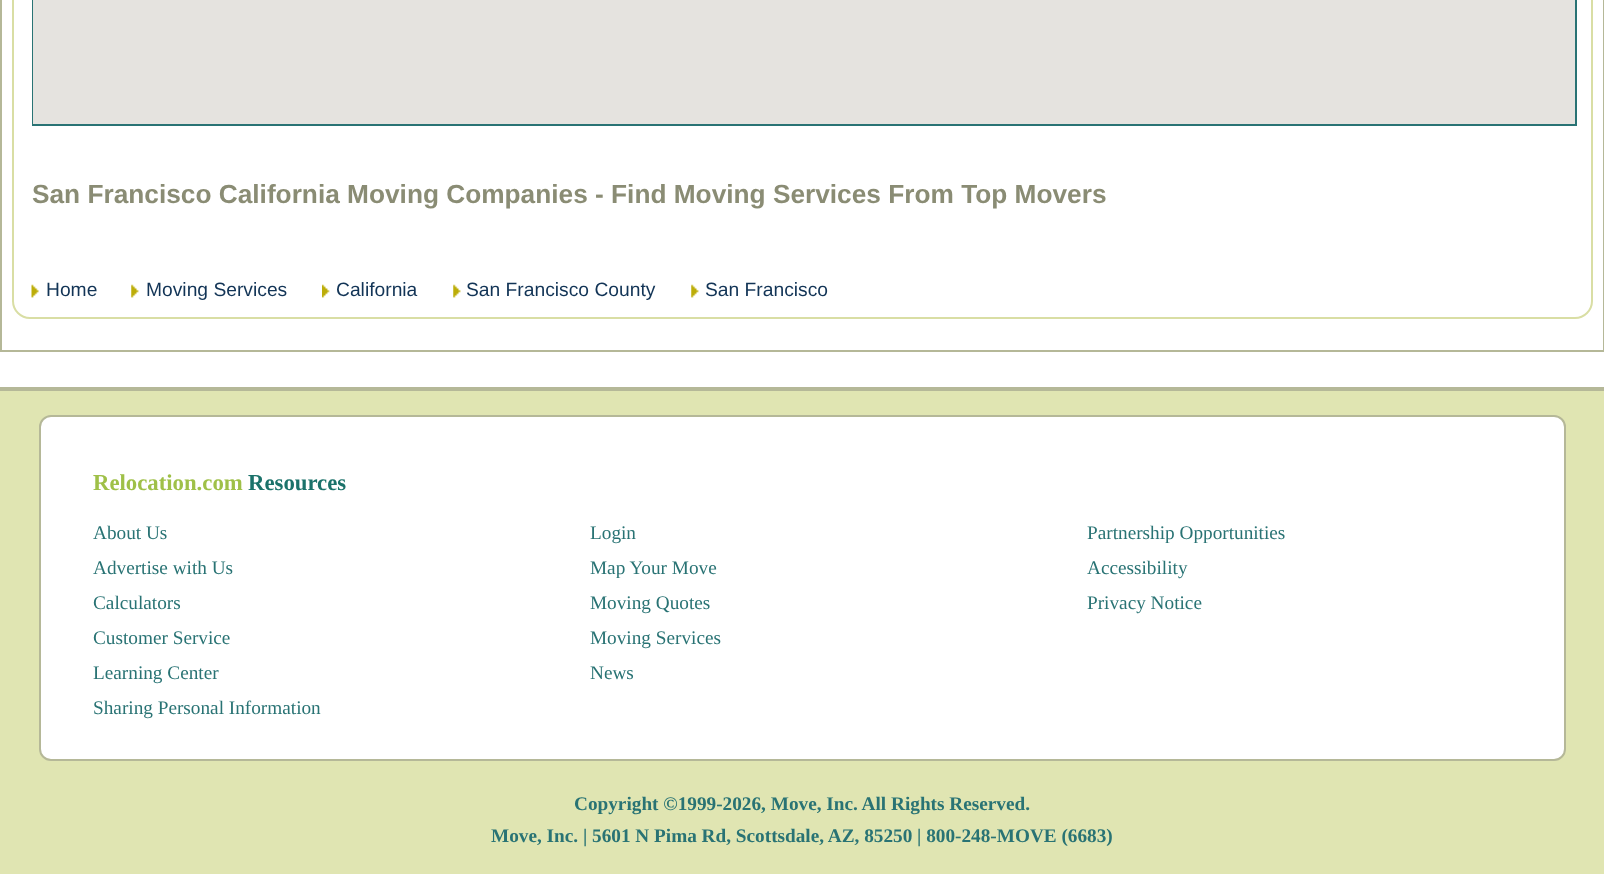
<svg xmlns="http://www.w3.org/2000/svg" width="1604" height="874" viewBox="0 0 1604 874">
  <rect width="100%" height="100%" fill="rgb(255,255,255)"/>
  <rect x="1603" y="0" width="1" height="352" fill="rgb(181,184,152)"/>
  <rect x="0" y="350" width="1604" height="2" fill="rgb(181,184,152)"/>
  <rect x="0" y="0" width="2" height="352" fill="rgb(181,184,152)"/>
  <rect x="13" y="-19" width="1579" height="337" rx="17" fill="none" stroke="rgb(217,222,164)" stroke-width="2"/>
  <rect x="33" y="-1" width="1543" height="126" fill="none" stroke="rgb(41,115,116)" stroke-width="2"/>
  <rect x="33" y="0" width="1542" height="124" fill="rgb(229,227,223)"/>
  <text x="32" y="203" font-family="Liberation Sans" font-size="26.25" font-weight="bold" fill="rgb(138,140,116)">San Francisco California Moving Companies - Find Moving Services From Top Movers</text>
  <image x="31" y="284" width="8" height="14" href="pic1.png"/>
  <text x="46" y="296" font-family="Liberation Sans" font-size="19.25" fill="rgb(18,52,86)">Home</text>
  <image x="131" y="284" width="8" height="14" href="pic2.png"/>
  <text x="146" y="296" font-family="Liberation Sans" font-size="19.25" fill="rgb(18,52,86)">Moving Services</text>
  <image x="322" y="284" width="8" height="14" href="pic3.png"/>
  <text x="336" y="296" font-family="Liberation Sans" font-size="19.25" fill="rgb(18,52,86)">California</text>
  <image x="453" y="284" width="8" height="14" href="pic2.png"/>
  <text x="466" y="296" font-family="Liberation Sans" font-size="19.25" fill="rgb(18,52,86)">San Francisco County</text>
  <image x="691" y="284" width="8" height="14" href="pic2.png"/>
  <text x="705" y="296" font-family="Liberation Sans" font-size="19.25" fill="rgb(18,52,86)">San Francisco</text>
  <rect x="0" y="391" width="1604" height="483" fill="rgb(224,229,178)"/>
  <rect x="0" y="387" width="1604" height="4" fill="rgb(181,184,152)"/>
  <rect x="40" y="416" width="1525" height="344" rx="11" fill="rgb(255,255,255)" stroke="rgb(181,184,152)" stroke-width="2"/>
  <text x="93" y="490" font-family="Liberation Serif" font-size="22.75" font-weight="bold" fill="rgb(159,192,72)">Relocation.com</text>
  <text x="248" y="490" font-family="Liberation Serif" font-size="22.75" font-weight="bold" fill="rgb(27,114,106)">Resources</text>
  <g font-family="Liberation Serif" font-size="19.25" fill="rgb(41,115,116)">
    <text x="93" y="539">About Us</text>
    <text x="590" y="539">Login</text>
    <text x="1087" y="539">Partnership Opportunities</text>
    <text x="93" y="574">Advertise with Us</text>
    <text x="590" y="574">Map Your Move</text>
    <text x="1087" y="574">Accessibility</text>
    <text x="93" y="609">Calculators</text>
    <text x="590" y="609">Moving Quotes</text>
    <text x="1087" y="609">Privacy Notice</text>
    <text x="93" y="644">Customer Service</text>
    <text x="590" y="644">Moving Services</text>
    <text x="93" y="679">Learning Center</text>
    <text x="590" y="679">News</text>
    <text x="93" y="714">Sharing Personal Information</text>
  </g>
  <g font-family="Liberation Serif" font-size="19.25" font-weight="bold" fill="rgb(41,115,116)">
    <text x="574" y="810">Copyright ©1999-2026, Move, Inc. All Rights Reserved.</text>
    <text x="491" y="842">Move, Inc. | 5601 N Pima Rd, Scottsdale, AZ, 85250 | 800-248-MOVE (6683)</text>
  </g>
</svg>
